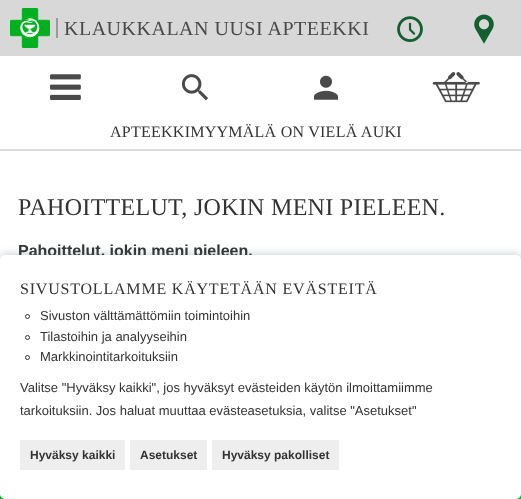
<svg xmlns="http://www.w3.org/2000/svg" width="521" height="499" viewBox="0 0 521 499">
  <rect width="100%" height="100%" fill="rgb(255,255,255)"/>
  <rect x="0" y="149" width="521" height="2" fill="rgb(220,220,220)"/>
  <rect x="0" y="0" width="521" height="56" fill="rgb(216,216,216)"/>
  <image x="10" y="8" width="40" height="40" href="pic1.png"/>
  <rect x="56" y="18" width="2" height="20" fill="rgb(155,155,155)"/>
  <text x="64" y="35" font-family="Liberation Serif" font-size="20" letter-spacing="0.5" fill="rgb(74,74,74)">KLAUKKALAN UUSI APTEEKKI</text>
  <image x="397" y="16" width="26" height="26" href="pic2.png"/>
  <image x="474" y="14" width="20" height="30" href="pic3.png"/>
  <image x="50" y="74" width="31" height="26" href="pic4.png"/>
  <image x="181" y="74" width="28" height="27" href="pic5.png"/>
  <image x="314" y="75" width="24" height="25" href="pic6.png"/>
  <image x="432" y="72" width="48" height="31" href="pic7.png"/>
  <text x="110" y="137" font-family="Liberation Serif" font-size="16" letter-spacing="0.25" fill="rgb(51,51,51)">APTEEKKIMYYMÄLÄ ON VIELÄ AUKI</text>
  <text x="18" y="215" font-family="Liberation Serif" font-size="24" letter-spacing="0.3" fill="rgb(51,51,51)">PAHOITTELUT, JOKIN MENI PIELEEN.</text>
  <text x="18" y="256" font-family="Liberation Sans" font-size="16" font-weight="bold" fill="rgb(51,51,51)">Pahoittelut, jokin meni pieleen.</text>
  <rect x="0" y="494" width="521" height="5" fill="rgb(0,177,31)"/>
  <rect x="0" y="255" width="521" height="244" rx="5" fill="rgba(84,116,120,0.4)" filter="blur(5px)"/>
  <rect x="0" y="255" width="521" height="244" rx="5" fill="rgb(255,255,255)"/>
  <text x="20" y="294" font-family="Liberation Serif" font-size="16" letter-spacing="0.8" fill="rgb(51,51,51)">SIVUSTOLLAMME KÄYTETÄÄN EVÄSTEITÄ</text>
  <circle cx="27.5" cy="316.5" r="2" fill="none" stroke="rgb(51,51,51)"/>
  <text x="40" y="320" font-family="Liberation Sans" font-size="13" fill="rgb(51,51,51)">Sivuston välttämättömiin toimintoihin</text>
  <circle cx="27.5" cy="337.5" r="2" fill="none" stroke="rgb(51,51,51)"/>
  <text x="40" y="341" font-family="Liberation Sans" font-size="13" fill="rgb(51,51,51)">Tilastoihin ja analyyseihin</text>
  <circle cx="27.5" cy="357.5" r="2" fill="none" stroke="rgb(51,51,51)"/>
  <g font-family="Liberation Sans" font-size="13" fill="rgb(51,51,51)">
    <text x="40" y="361">Markkinointitarkoituksiin</text>
    <text>
      <tspan x="20" y="392">Valitse "Hyväksy kaikki", jos hyväksyt evästeiden käytön ilmoittamiimme</tspan>
      <tspan x="20" y="415">tarkoituksiin. Jos haluat muuttaa evästeasetuksia, valitse "Asetukset"</tspan>
    </text>
  </g>
  <rect x="20" y="440" width="105" height="30" fill="rgb(238,238,238)"/>
  <text x="30" y="459" font-family="Liberation Sans" font-size="12" font-weight="bold" fill="rgb(51,51,51)">Hyväksy kaikki</text>
  <rect x="130" y="440" width="77" height="30" fill="rgb(238,238,238)"/>
  <text x="140" y="459" font-family="Liberation Sans" font-size="12" font-weight="bold" fill="rgb(51,51,51)">Asetukset</text>
  <rect x="212" y="440" width="127" height="30" fill="rgb(238,238,238)"/>
  <text x="222" y="459" font-family="Liberation Sans" font-size="12" font-weight="bold" fill="rgb(51,51,51)">Hyväksy pakolliset</text>
</svg>
